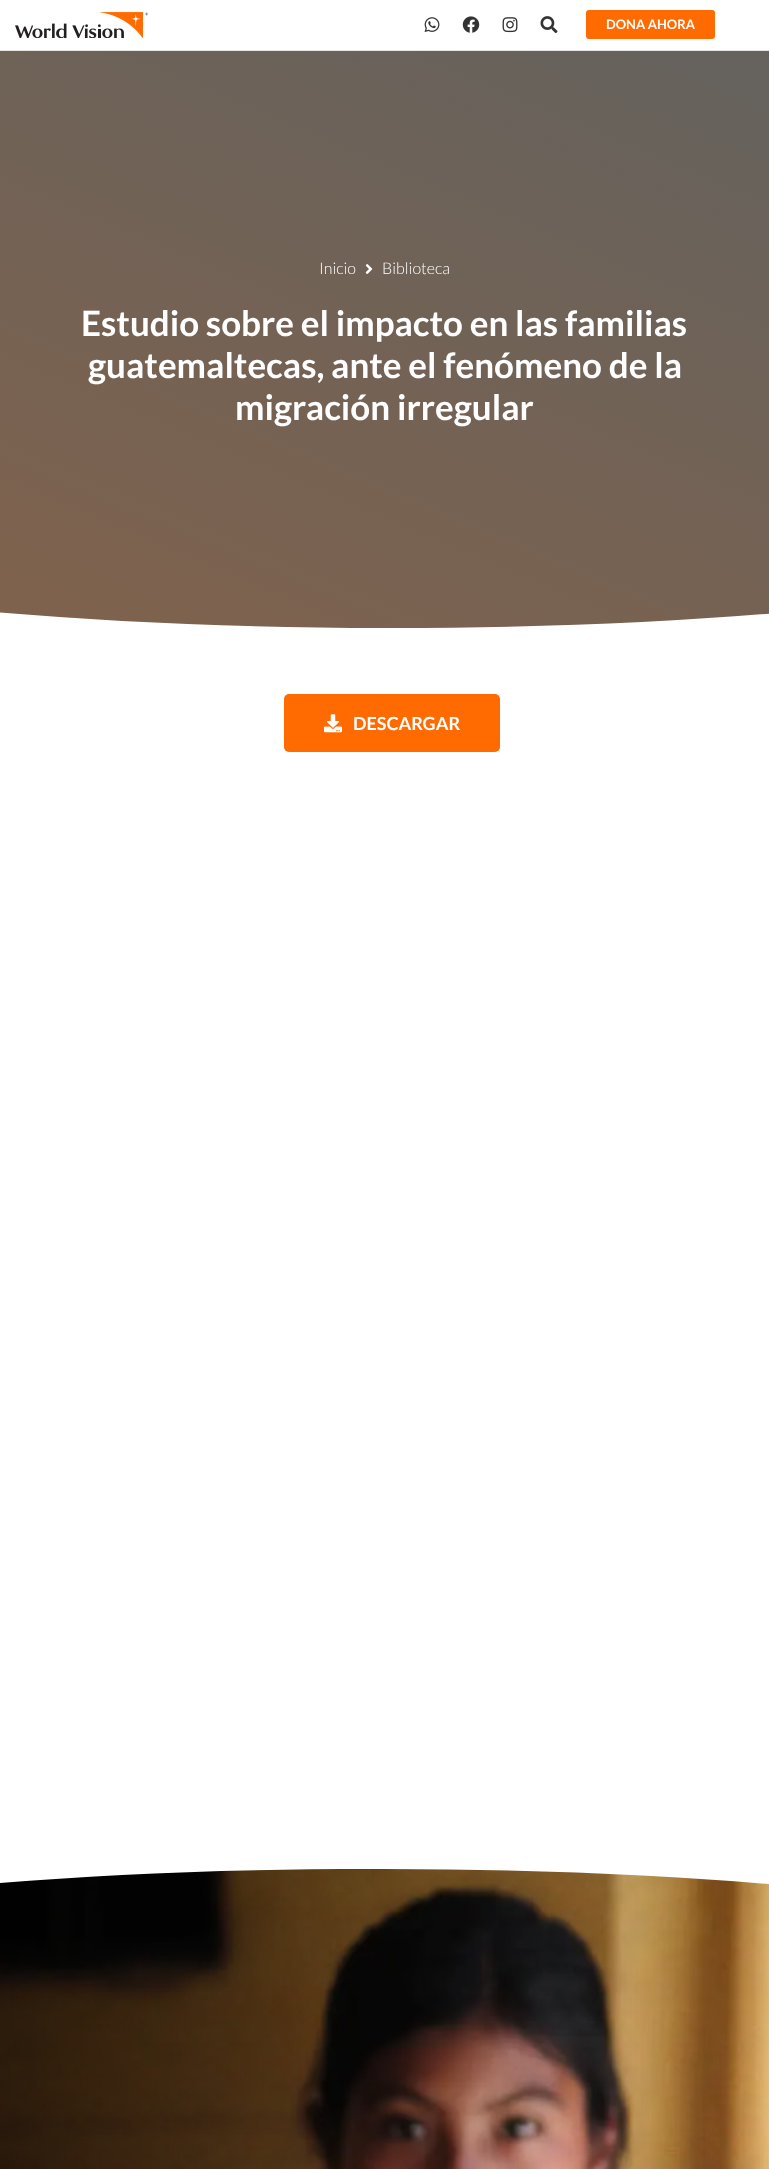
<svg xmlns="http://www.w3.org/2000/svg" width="769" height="2169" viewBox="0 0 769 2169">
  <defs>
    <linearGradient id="g1" gradientUnits="userSpaceOnUse" x1="548" y1="-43" x2="221" y2="727"><stop offset="0" stop-color="rgb(101,98,94)"/><stop offset="1" stop-color="rgb(128,98,77)"/></linearGradient>
  </defs>
  <rect width="100%" height="100%" fill="rgb(255,255,255)"/>
  <rect x="0" y="50" width="769" height="1" fill="rgb(230,229,225)"/>
  <image x="15" y="12" width="133" height="26" href="pic1.png"/>
  <image x="424" y="17" width="16" height="15" href="pic2.png"/>
  <image x="462" y="16" width="18" height="17" href="pic3.png"/>
  <image x="502" y="17" width="16" height="16" href="pic4.png"/>
  <image x="540" y="16" width="18" height="18" href="pic5.png"/>
  <rect x="586" y="10" width="129" height="29" rx="3" fill="rgb(255,107,0)"/>
  <text x="606" y="29" font-family="Lato" font-size="13" font-weight="bold" fill="rgb(255,255,255)">DONA AHORA</text>
  <rect x="0" y="51" width="769" height="577" fill="url(#g1)"/>
  <text x="319" y="274" font-family="Lato" font-size="16" font-weight="300" fill="rgb(255,255,255)">Inicio</text>
  <image x="365" y="264" width="8" height="10" href="pic6.png"/>
  <text x="382" y="274" font-family="Lato" font-size="16" font-weight="300" fill="rgb(255,255,255)">Biblioteca</text>
  <g font-family="Lato" font-size="35" font-weight="bold" fill="rgb(255,255,255)">
    <text x="81" y="336">Estudio sobre el impacto en las familias</text>
    <text x="88" y="378">guatemaltecas, ante el fenómeno de la</text>
    <text x="235" y="420">migración irregular</text>
  </g>
  <path d="M385 628C-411 626-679 463-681 421V634H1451V423C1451 462 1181 629 385 628Z" fill="rgb(255,255,255)"/>
  <rect x="284" y="694" width="216" height="58" rx="5" fill="rgb(255,107,0)"/>
  <image x="324" y="714" width="18" height="19" href="pic7.png"/>
  <text x="353" y="730" font-family="Lato" font-size="18" font-weight="bold" fill="rgb(255,255,255)">DESCARGAR</text>
  <image x="0" y="1869" width="769" height="300" href="pic8.png"/>
  <path d="M384 1869C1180 1870 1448 2033 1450 2076V1863H-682V2074C-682 2034-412 1867 384 1869Z" fill="rgb(255,255,255)"/>
</svg>
